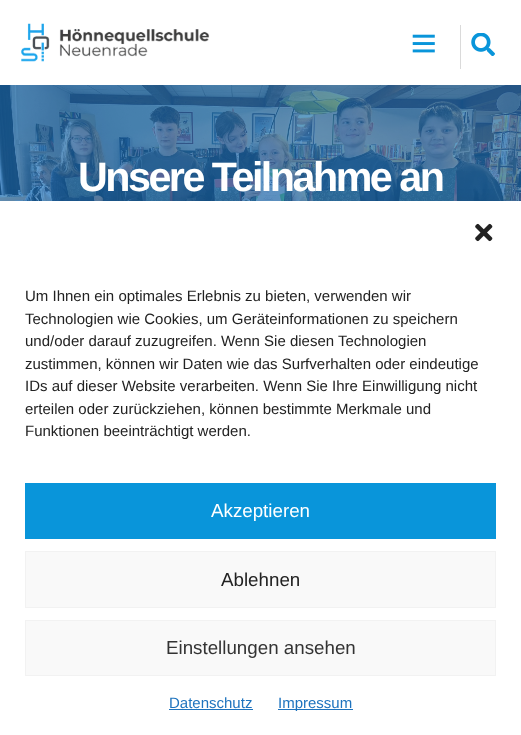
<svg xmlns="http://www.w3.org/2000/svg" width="521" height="735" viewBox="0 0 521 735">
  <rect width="100%" height="100%" fill="rgb(255,255,255)"/>
  <image x="21" y="23" width="189" height="39" href="pic1.png"/>
  <image x="412" y="34" width="23" height="19" href="pic2.png"/>
  <rect x="460" y="25" width="1" height="44" fill="rgb(218,218,218)"/>
  <image x="471" y="33" width="24" height="23" href="pic3.png"/>
  <image x="0" y="85" width="521" height="116" href="pic4.png"/>
  <text x="78" y="191" font-family="Liberation Sans" font-size="41.25" font-weight="bold" letter-spacing="-2.5" fill="rgb(255,255,255)">Unsere Teilnahme an</text>
  <rect x="0" y="214" width="521" height="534" fill="rgba(0,0,0,0.19)" filter="blur(12.5px)"/>
  <rect x="0" y="201" width="521" height="534" fill="rgb(255,255,255)"/>
  <image x="475" y="223" width="18" height="19" href="pic5.png"/>
  <g font-family="Liberation Sans" font-size="15" fill="rgb(34,34,34)">
    <text>
      <tspan x="25" y="301">Um Ihnen ein optimales Erlebnis zu bieten, verwenden wir</tspan>
      <tspan x="25" y="324">Technologien wie Cookies, um Geräteinformationen zu speichern</tspan>
      <tspan x="25" y="346">und/oder darauf zuzugreifen. Wenn Sie diesen Technologien</tspan>
      <tspan x="25" y="369">zustimmen, können wir Daten wie das Surfverhalten oder eindeutige</tspan>
      <tspan x="25" y="391">IDs auf dieser Website verarbeiten. Wenn Sie Ihre Einwilligung nicht</tspan>
      <tspan x="25" y="414">erteilen oder zurückziehen, können bestimmte Merkmale und</tspan>
      <tspan x="25" y="436">Funktionen beeinträchtigt werden.</tspan>
    </text>
  </g>
  <rect x="25" y="483" width="471" height="56" fill="rgb(9,149,218)"/>
  <text x="211" y="517" font-family="Liberation Sans" font-size="18.75" fill="rgb(255,255,255)">Akzeptieren</text>
  <rect x="25.5" y="551.5" width="470" height="56" fill="rgb(249,249,249)" stroke="rgb(242,242,242)"/>
  <text x="221" y="586" font-family="Liberation Sans" font-size="18.75" fill="rgb(34,34,34)">Ablehnen</text>
  <rect x="25.5" y="620.5" width="470" height="55" fill="rgb(249,249,249)" stroke="rgb(242,242,242)"/>
  <text x="166" y="654" font-family="Liberation Sans" font-size="18.75" fill="rgb(51,51,51)">Einstellungen ansehen</text>
  <text x="169" y="708" font-family="Liberation Sans" font-size="15" fill="rgb(30,115,190)">Datenschutz</text>
  <rect x="169" y="709" width="84" height="1" fill="rgb(30,115,190)"/>
  <rect x="278" y="709" width="75" height="1" fill="rgb(30,115,190)"/>
  <text x="278" y="708" font-family="Liberation Sans" font-size="15" fill="rgb(30,115,190)">Impressum</text>
</svg>
